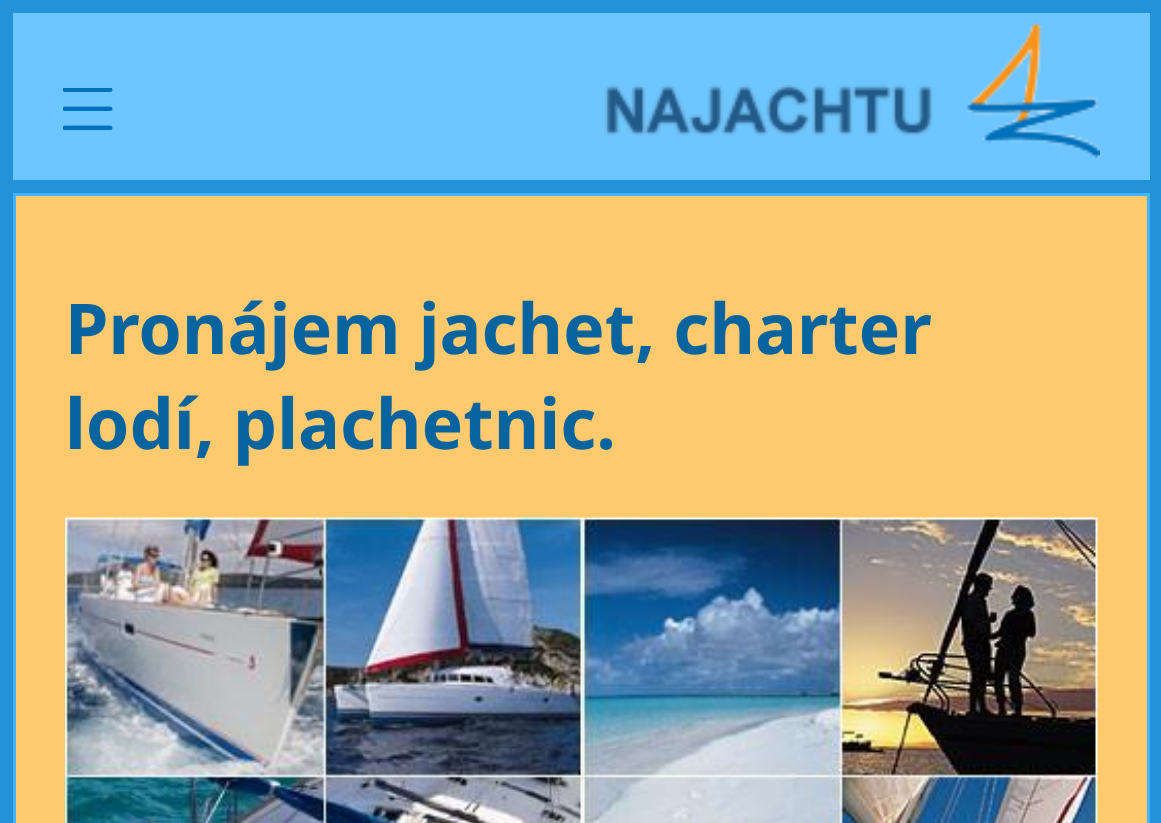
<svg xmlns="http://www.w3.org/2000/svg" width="1161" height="823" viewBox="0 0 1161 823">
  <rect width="100%" height="100%" fill="rgb(34,146,217)"/>
  <rect x="13" y="13" width="1137" height="167" fill="rgb(109,198,255)"/>
  <image x="63" y="88" width="50" height="43" href="pic1.png"/>
  <image x="604" y="25" width="496" height="133" href="pic2.png"/>
  <rect x="14.5" y="194.5" width="1134" height="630" fill="rgb(255,202,109)" stroke="rgb(67,180,251)" stroke-width="3"/>
  <g font-family="Noto Sans" font-size="70" font-weight="bold" fill="rgb(8,100,159)">
    <text>
      <tspan x="65" y="354">Pronájem jachet, charter</tspan>
      <tspan x="65" y="449">lodí, plachetnic.</tspan>
    </text>
  </g>
  <image x="65" y="517" width="518" height="306" href="pic3.png"/>
  <image x="582" y="517" width="516" height="306" href="pic4.png"/>
</svg>
